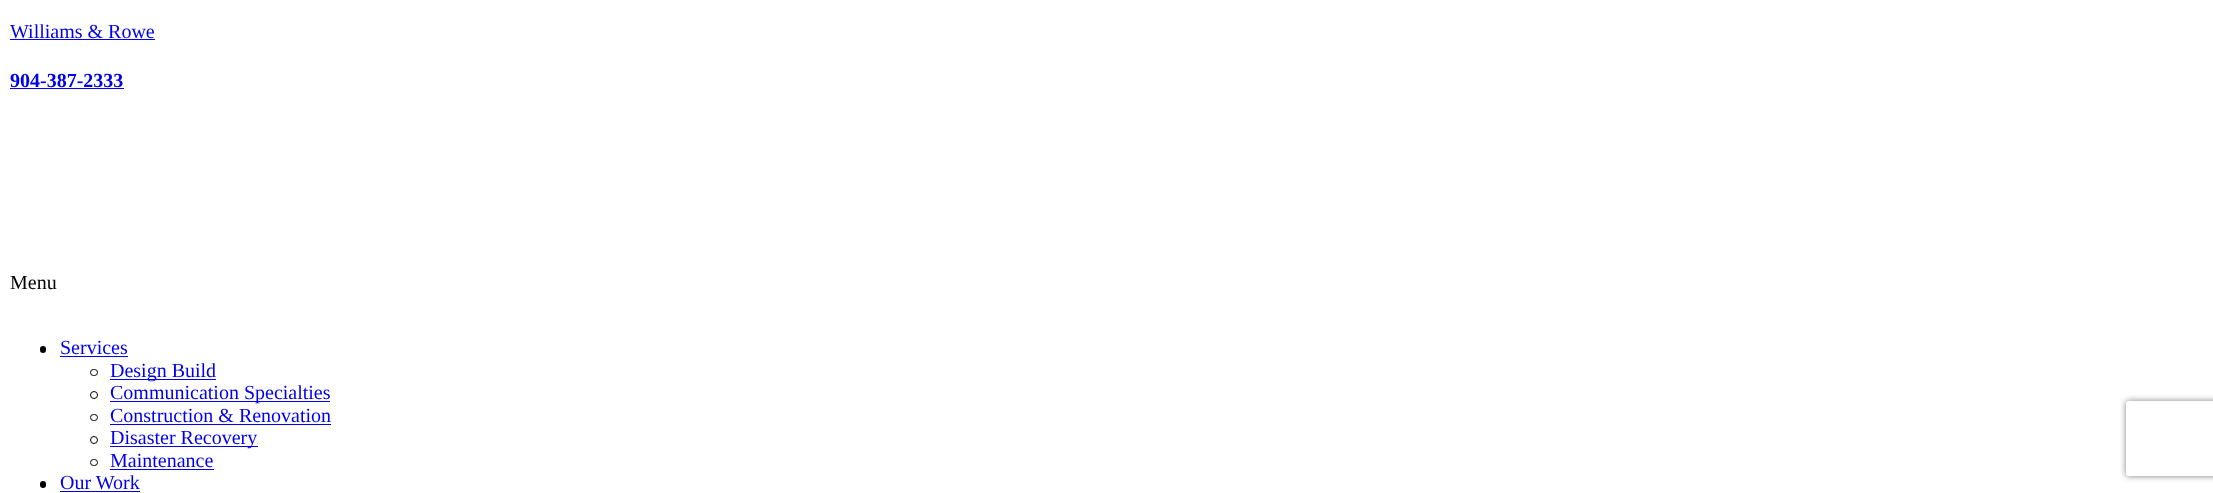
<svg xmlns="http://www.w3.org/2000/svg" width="2213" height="493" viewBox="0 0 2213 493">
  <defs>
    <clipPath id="clip1"><path d="M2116 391H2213V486H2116ZM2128.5 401H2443.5C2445 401 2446 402 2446 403.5V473.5C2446 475 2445 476 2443.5 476H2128.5C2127 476 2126 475 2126 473.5V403.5C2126 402 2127 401 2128.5 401Z" clip-rule="evenodd"/></clipPath>
  </defs>
  <rect width="100%" height="100%" fill="rgb(255,255,255)"/>
  <text x="10" y="38" font-family="Liberation Serif" font-size="20" fill="rgb(0,0,238)">Williams &amp; Rowe</text>
  <rect x="10" y="39" width="145" height="1" fill="rgb(0,0,238)"/>
  <text x="10" y="87" font-family="Liberation Serif" font-size="20" font-weight="bold" fill="rgb(0,0,238)">904-387-2333</text>
  <rect x="10" y="88" width="114" height="1" fill="rgb(0,0,238)"/>
  <text x="10" y="289" font-family="Liberation Serif" font-size="20" fill="rgb(0,0,0)">Menu</text>
  <rect x="40" y="346" width="6" height="7" rx="3" fill="rgb(0,0,0)"/>
  <text x="60" y="354" font-family="Liberation Serif" font-size="20" fill="rgb(0,0,238)">Services</text>
  <rect x="60" y="356" width="68" height="1" fill="rgb(0,0,238)"/>
  <rect x="90.5" y="369.5" width="7" height="6" rx="3" fill="none" stroke="rgb(0,0,0)"/>
  <rect x="110" y="379" width="106" height="1" fill="rgb(0,0,238)"/>
  <text x="110" y="377" font-family="Liberation Serif" font-size="20" fill="rgb(0,0,238)">Design Build</text>
  <circle cx="94" cy="395" r="3.5" fill="none" stroke="rgb(0,0,0)"/>
  <rect x="110" y="401" width="220" height="1" fill="rgb(0,0,238)"/>
  <text x="110" y="399" font-family="Liberation Serif" font-size="20" fill="rgb(0,0,238)">Communication Specialties</text>
  <rect x="90.5" y="414.5" width="7" height="6" rx="3" fill="none" stroke="rgb(0,0,0)"/>
  <text x="110" y="422" font-family="Liberation Serif" font-size="20" fill="rgb(0,0,238)">Construction &amp; Renovation</text>
  <rect x="110" y="424" width="221" height="1" fill="rgb(0,0,238)"/>
  <circle cx="94" cy="440" r="3.5" fill="none" stroke="rgb(0,0,0)"/>
  <rect x="110" y="446" width="148" height="1" fill="rgb(0,0,238)"/>
  <text x="110" y="444" font-family="Liberation Serif" font-size="20" fill="rgb(0,0,238)">Disaster Recovery</text>
  <rect x="90.5" y="459.5" width="7" height="6" rx="3" fill="none" stroke="rgb(0,0,0)"/>
  <text x="110" y="467" font-family="Liberation Serif" font-size="20" fill="rgb(0,0,238)">Maintenance</text>
  <rect x="110" y="469" width="104" height="1" fill="rgb(0,0,238)"/>
  <rect x="40" y="481" width="6" height="7" rx="3" fill="rgb(0,0,0)"/>
  <text x="60" y="489" font-family="Liberation Serif" font-size="20" fill="rgb(0,0,238)">Our Work</text>
  <rect x="60" y="491" width="80" height="1" fill="rgb(0,0,238)"/>
  <g clip-path="url(#clip1)">
    <rect x="2126" y="401" width="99" height="75" rx="2.5" fill="rgb(128,128,128)" filter="blur(3px)"/>
  </g>
</svg>
